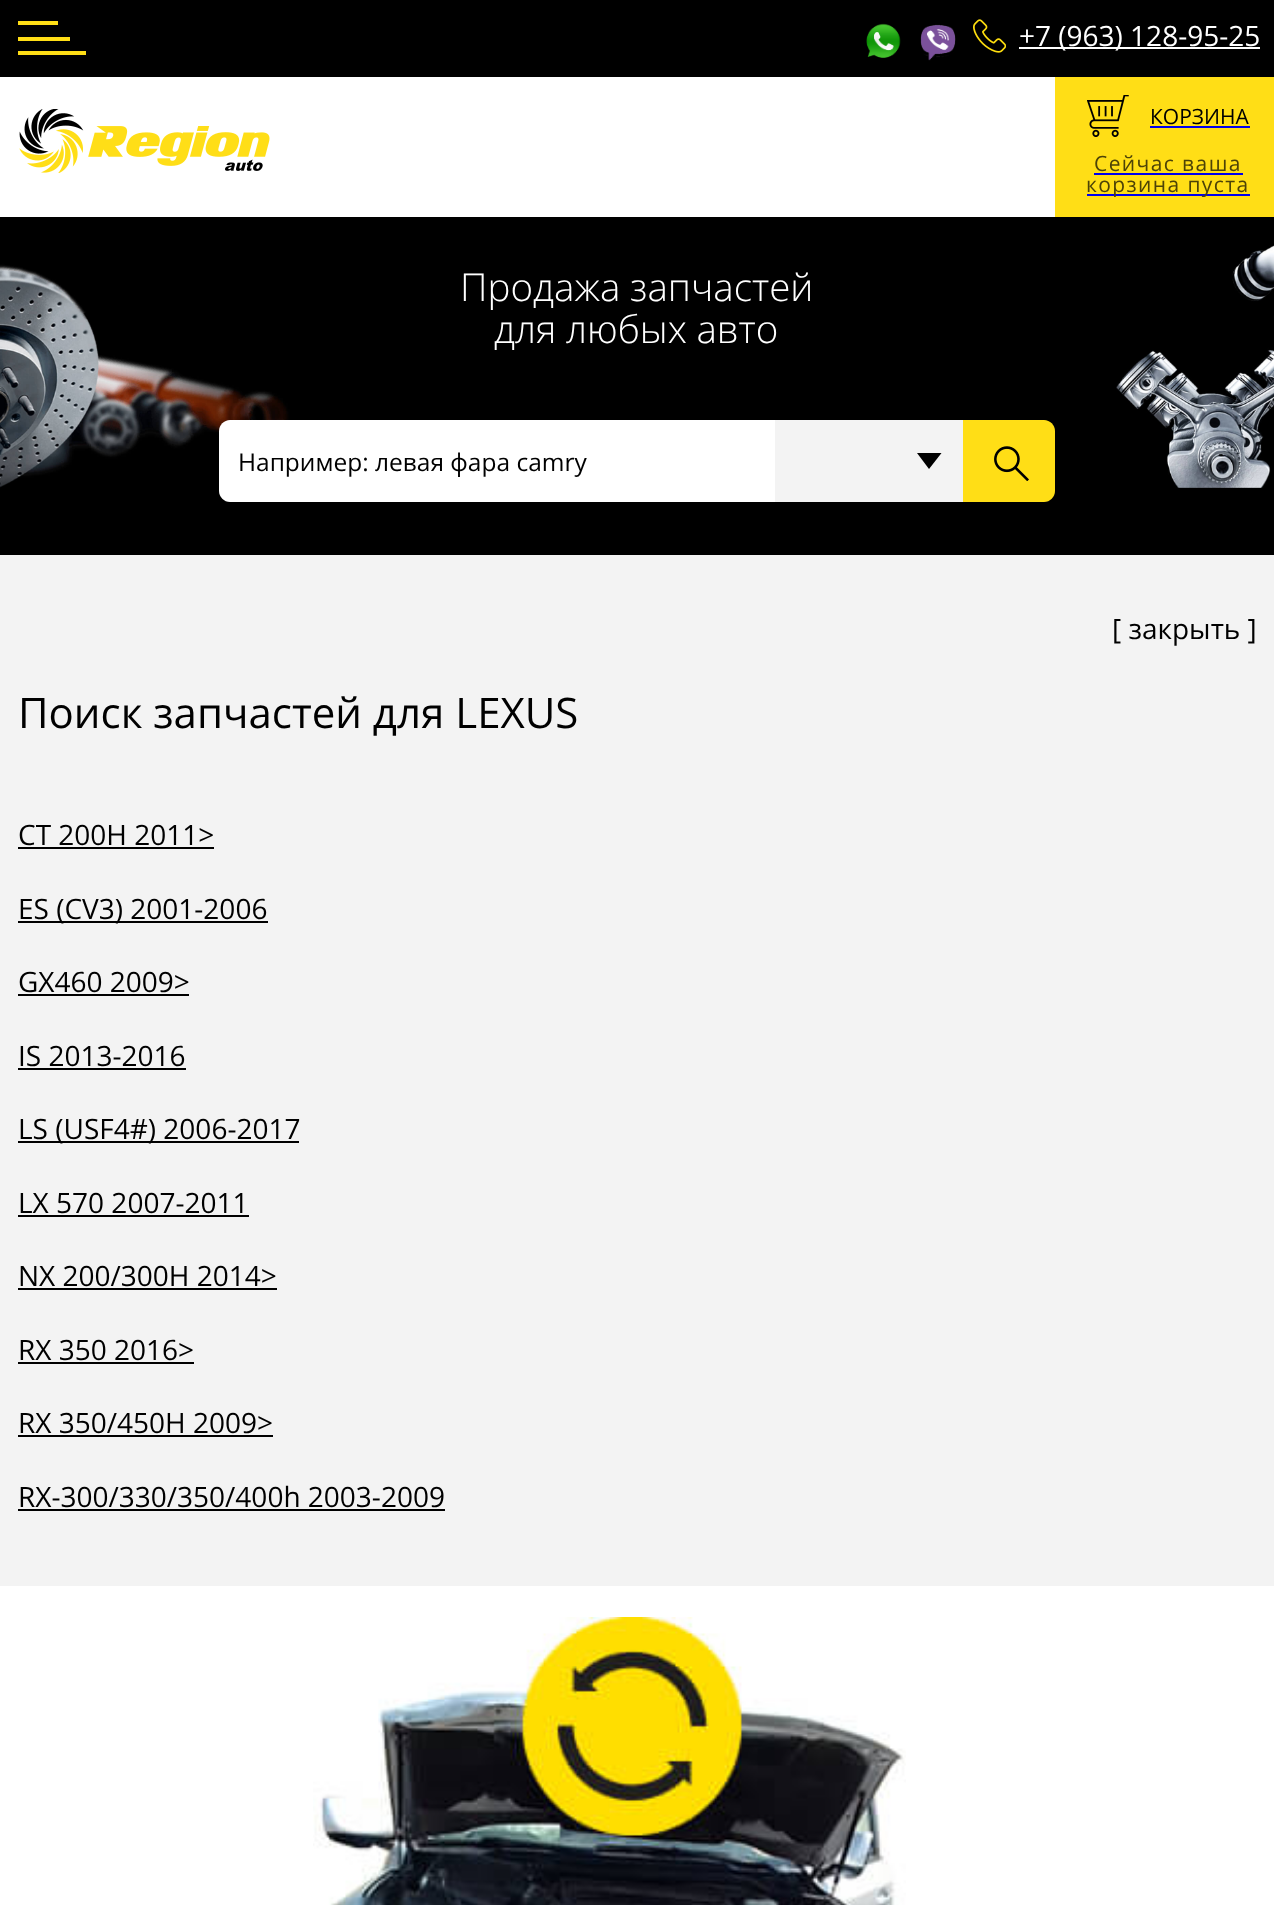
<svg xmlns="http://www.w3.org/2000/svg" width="1274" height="1905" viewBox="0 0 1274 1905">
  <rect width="100%" height="100%" fill="rgb(255,255,255)"/>
  <rect x="0" y="0" width="1274" height="77" fill="rgb(0,0,0)"/>
  <rect x="18" y="51" width="68" height="4" fill="rgb(255,222,22)"/>
  <rect x="18" y="21" width="40" height="4" fill="rgb(255,222,22)"/>
  <rect x="18" y="37" width="52" height="4" fill="rgb(255,222,22)"/>
  <image x="866" y="23" width="35" height="35" href="pic1.png"/>
  <image x="920" y="24" width="36" height="37" href="pic2.png"/>
  <image x="973" y="19" width="33" height="34" href="pic3.png"/>
  <rect x="1019" y="47" width="241" height="2" fill="rgb(255,255,255)"/>
  <text x="1019" y="46" font-family="Open Sans" font-size="28" fill="rgb(255,255,255)">+7 (963) 128-95-25</text>
  <image x="19" y="109" width="251" height="64" href="pic4.png"/>
  <rect x="1055" y="77" width="219" height="140" fill="rgb(255,222,22)"/>
  <image x="1087" y="95" width="42" height="42" href="pic5.png"/>
  <text x="1150" y="124" font-family="Open Sans" font-size="21" fill="rgb(0,0,0)">КОРЗИНА</text>
  <rect x="1150" y="126" width="100" height="2" fill="rgb(0,0,238)"/>
  <text x="1094" y="171" font-family="Open Sans" font-size="21" letter-spacing="1.4" fill="rgb(77,67,7)">Сейчас ваша</text>
  <rect x="1094" y="173" width="149" height="2" fill="rgb(0,0,238)"/>
  <rect x="1087" y="194" width="163" height="2" fill="rgb(0,0,238)"/>
  <text x="1086" y="192" font-family="Open Sans" font-size="21" letter-spacing="1.4" fill="rgb(77,67,7)">корзина пуста</text>
  <rect x="0" y="217" width="1274" height="338" fill="rgb(0,0,0)"/>
  <image x="0" y="245" width="1274" height="243" href="pic6.png"/>
  <g font-family="Open Sans" font-size="38.5" font-weight="300" fill="rgb(255,255,255)">
    <text x="460" y="301">Продажа запчастей</text>
    <text x="494" y="343">для любых авто</text>
  </g>
  <path d="M230 420H775V502H230C224 502 219 497 219 491V431C219 425 224 420 230 420Z" fill="rgb(255,255,255)"/>
  <text x="238" y="471" font-family="Open Sans" font-size="24.5" fill="rgb(0,0,0)">Например: левая фара camry</text>
  <rect x="775" y="420" width="188" height="82" fill="rgb(243,243,243)"/>
  <path d="M917 453H941.5L929 469Z" fill="rgb(0,0,0)" fill-rule="evenodd"/>
  <path d="M963 420H1044C1050 420 1055 425 1055 431V491C1055 497 1050 502 1044 502H963Z" fill="rgb(255,222,22)"/>
  <image x="994" y="446" width="35" height="35" href="pic7.png"/>
  <rect x="0" y="555" width="1274" height="1031" fill="rgb(243,243,243)"/>
  <text x="1112" y="639" font-family="Open Sans" font-size="28" fill="rgb(0,0,0)">[ закрыть ]</text>
  <text x="18" y="728" font-family="Open Sans" font-size="42" fill="rgb(0,0,0)">Поиск запчастей для LEXUS</text>
  <text x="18" y="845" font-family="Open Sans" font-size="28" fill="rgb(0,0,0)">CT 200H 2011&gt;</text>
  <rect x="18" y="847" width="196" height="2" fill="rgb(0,0,0)"/>
  <rect x="18" y="921" width="250" height="2" fill="rgb(0,0,0)"/>
  <g font-family="Open Sans" font-size="28" fill="rgb(0,0,0)">
    <text x="18" y="919">ES (CV3) 2001-2006</text>
    <text x="18" y="992">GX460 2009&gt;</text>
  </g>
  <rect x="18" y="994" width="171" height="2" fill="rgb(0,0,0)"/>
  <text x="18" y="1066" font-family="Open Sans" font-size="28" fill="rgb(0,0,0)">IS 2013-2016</text>
  <rect x="18" y="1068" width="168" height="2" fill="rgb(0,0,0)"/>
  <rect x="18" y="1141" width="281" height="2" fill="rgb(0,0,0)"/>
  <g font-family="Open Sans" font-size="28" fill="rgb(0,0,0)">
    <text x="18" y="1139">LS (USF4#) 2006-2017</text>
    <text x="18" y="1213">LX 570 2007-2011</text>
  </g>
  <rect x="18" y="1215" width="231" height="2" fill="rgb(0,0,0)"/>
  <text x="18" y="1286" font-family="Open Sans" font-size="28" fill="rgb(0,0,0)">NX 200/300H 2014&gt;</text>
  <rect x="18" y="1288" width="259" height="2" fill="rgb(0,0,0)"/>
  <text x="18" y="1360" font-family="Open Sans" font-size="28" fill="rgb(0,0,0)">RX 350 2016&gt;</text>
  <rect x="18" y="1362" width="176" height="2" fill="rgb(0,0,0)"/>
  <text x="18" y="1433" font-family="Open Sans" font-size="28" fill="rgb(0,0,0)">RX 350/450H 2009&gt;</text>
  <rect x="18" y="1435" width="255" height="2" fill="rgb(0,0,0)"/>
  <text x="18" y="1507" font-family="Open Sans" font-size="28" fill="rgb(0,0,0)">RX-300/330/350/400h 2003-2009</text>
  <rect x="18" y="1509" width="427" height="2" fill="rgb(0,0,0)"/>
  <image x="313" y="1617" width="593" height="288" href="pic8.png"/>
</svg>
